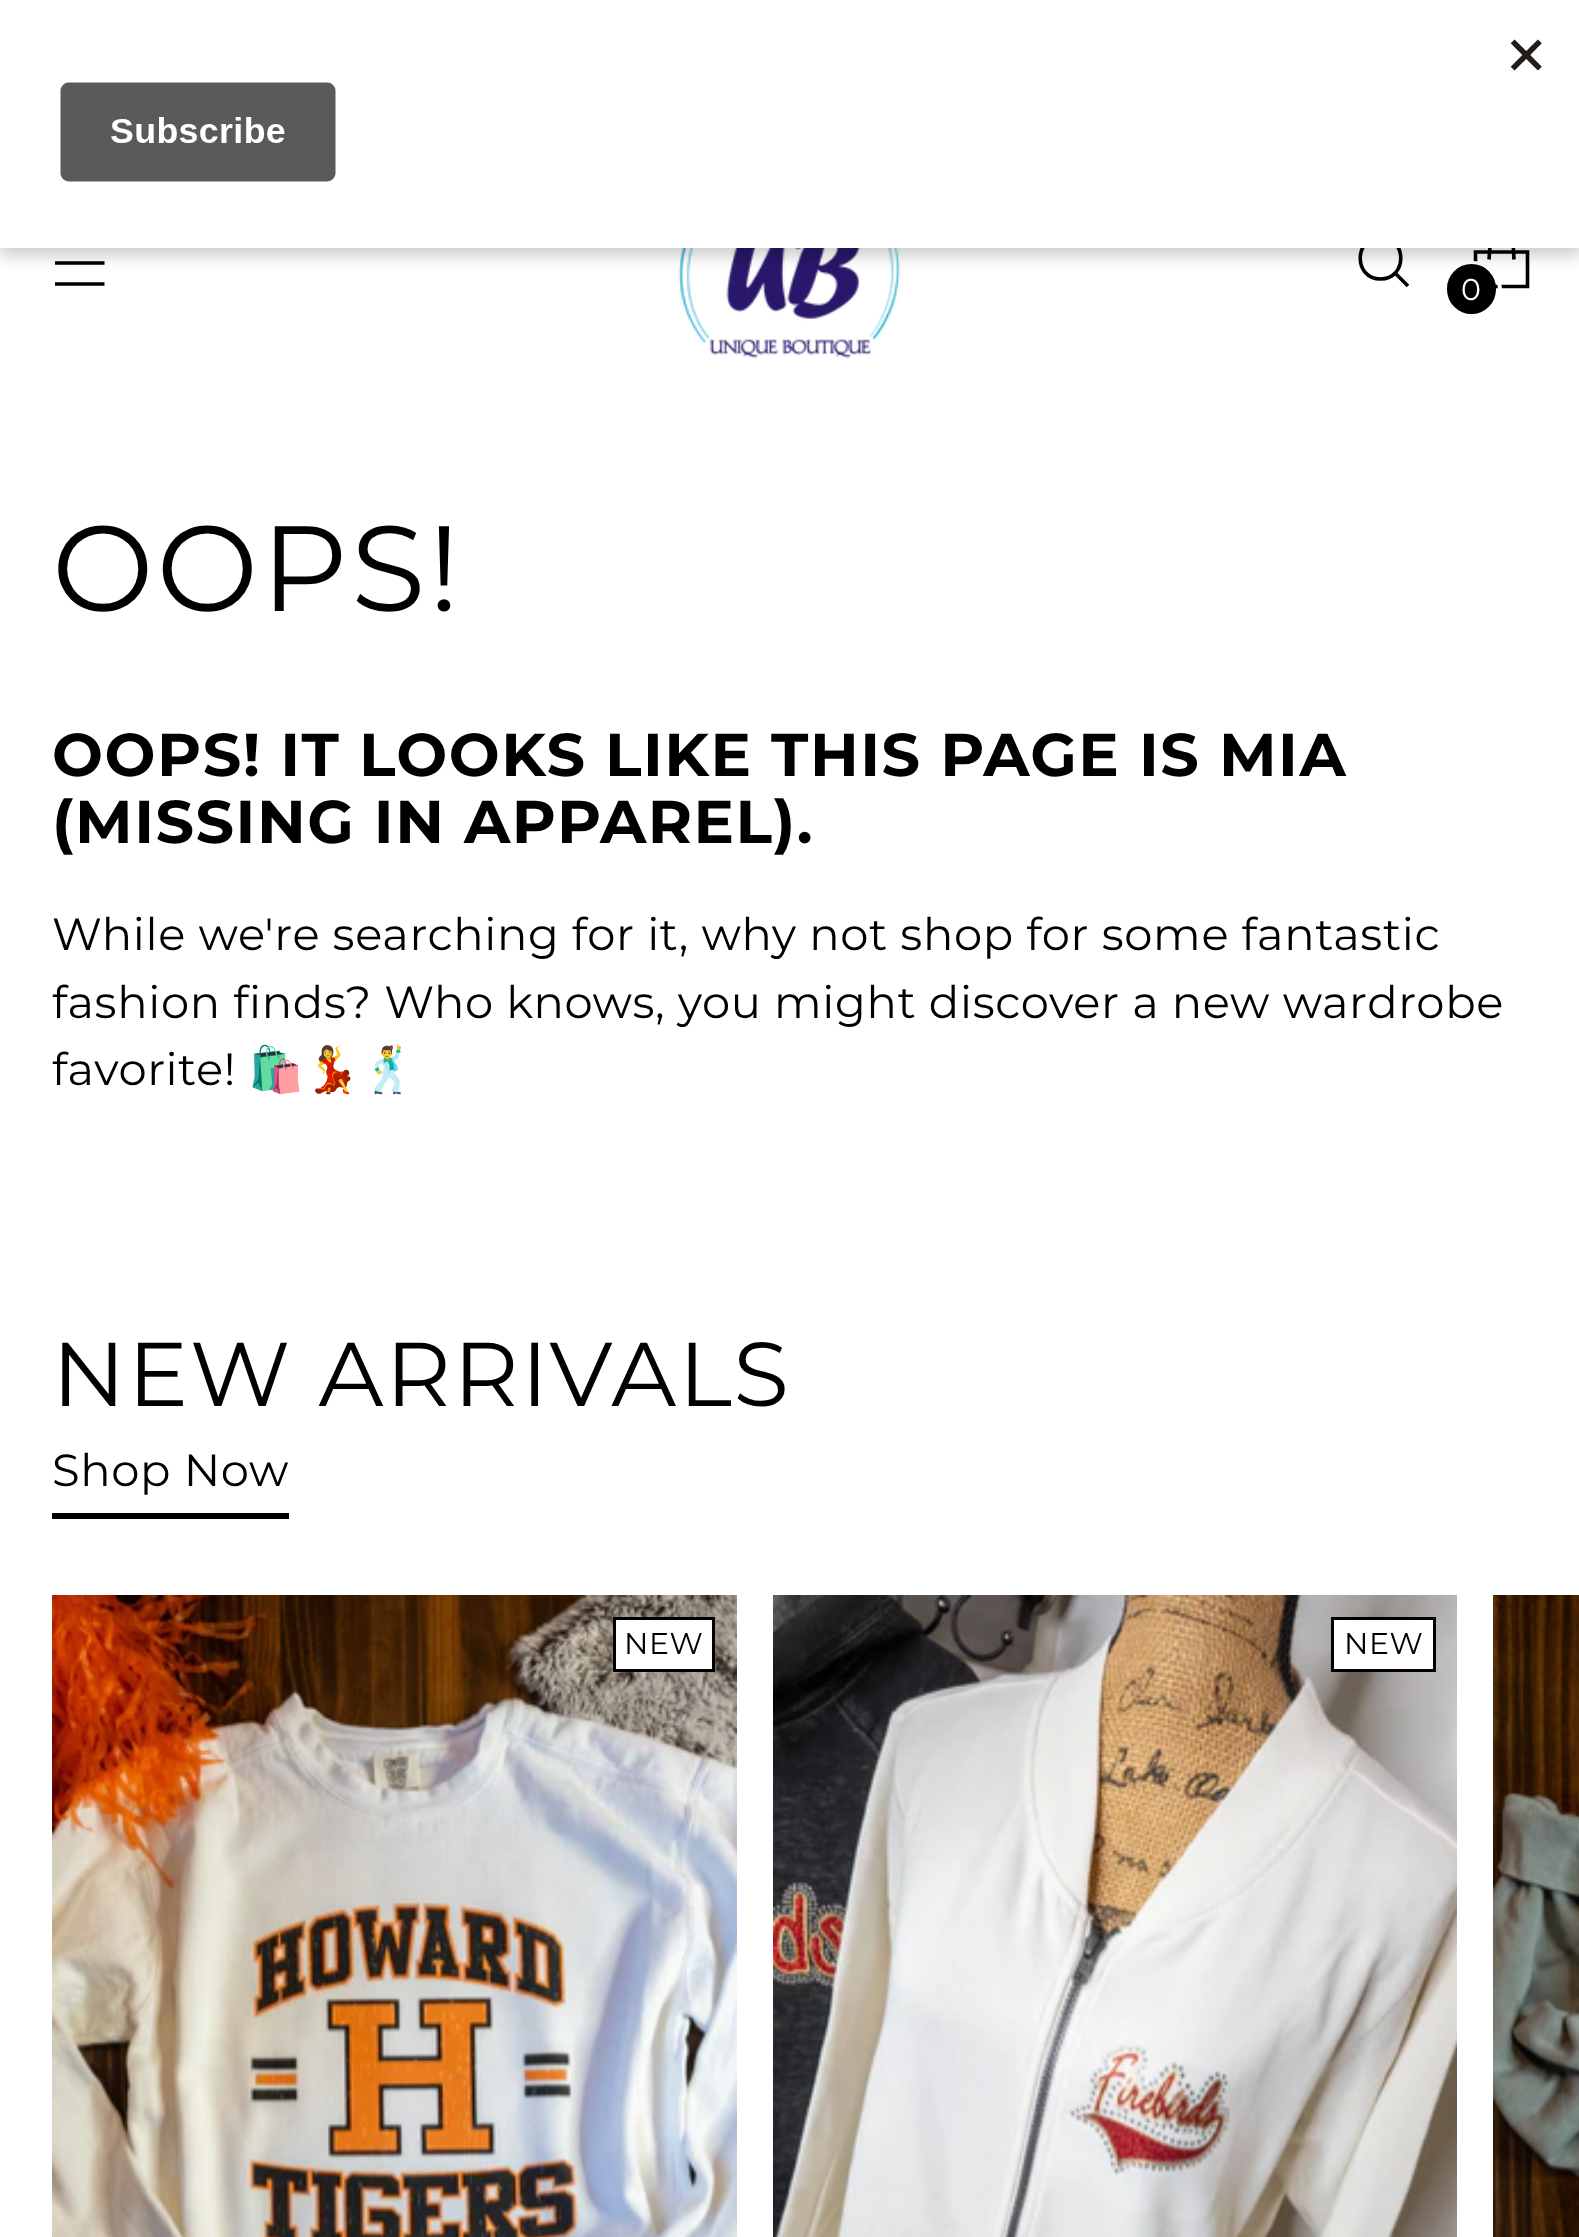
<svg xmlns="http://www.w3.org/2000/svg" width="1579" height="2237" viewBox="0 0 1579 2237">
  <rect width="100%" height="100%" fill="rgb(255,255,255)"/>
  <path d="M55 263H104.5M55 242.5H104.5M55 284H104.5" fill="none" stroke="rgb(0,0,0)" stroke-width="3.6"/>
  <image x="678" y="248" width="223" height="111" href="pic2.png"/>
  <path d="M1380.5 279C1407.5 279 1407.5 237.5 1380.5 237.5C1353.5 237.5 1353.5 279 1380.5 279Z" fill="none" stroke="rgb(0,0,0)" stroke-width="3.6" stroke-linecap="round"/>
  <path d="M1395 273L1408 286" fill="none" stroke="rgb(0,0,0)" stroke-width="3.6"/>
  <path d="M1514 259.5C1513.5 253.5 1514 246.5 1512 241C1510.5 237.5 1508 234.5 1504 233.5C1488.5 230.5 1490 250 1489 259.5" fill="none" stroke="rgb(0,0,0)" stroke-width="3.6" stroke-linejoin="bevel"/>
  <path d="M1527.5 286.5V252H1475.5V286.5Z" fill="none" stroke="rgb(0,0,0)" stroke-width="3.6"/>
  <circle cx="1473" cy="290" r="27" fill="none" stroke="rgb(255,255,255)" stroke-width="4"/>
  <rect x="1447" y="264" width="49" height="50" rx="24.5" fill="rgb(0,0,0)"/>
  <rect x="0" y="8" width="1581" height="248" fill="rgba(0,0,0,0.2)" filter="blur(8px)"/>
  <rect x="0" y="0" width="1579" height="248" fill="rgb(255,255,255)"/>
  <image x="60" y="39" width="1482" height="143" href="pic1.png"/>
  <text x="1461" y="300" font-family="Montserrat" font-size="30" letter-spacing="0.67" fill="rgb(255,255,255)">0</text>
  <text x="52" y="611" font-family="Montserrat" font-size="121" letter-spacing="3" fill="rgb(0,0,0)">OOPS!</text>
  <g font-family="Montserrat" font-size="60.4" font-weight="bold" letter-spacing="1.5" fill="rgb(0,0,0)">
    <text>
      <tspan x="52" y="776">OOPS! IT LOOKS LIKE THIS PAGE IS MIA</tspan>
      <tspan x="52" y="843">(MISSING IN APPAREL).</tspan>
    </text>
  </g>
  <g font-family="Montserrat" font-size="44.9" letter-spacing="0.67" fill="rgb(0,0,0)">
    <text>
      <tspan x="52" y="950">While we're searching for it, why not shop for some fantastic</tspan>
      <tspan x="52" y="1018">fashion finds? Who knows, you might discover a new wardrobe</tspan>
      <tspan x="52" y="1085">favorite!</tspan>
    </text>
  </g>
  <text x="248" y="1085" font-family="Noto Color Emoji" font-size="44.9" letter-spacing="0.67" fill="rgb(0,0,0)">🛍️💃🕺</text>
  <text x="52" y="1406" font-family="Montserrat" font-size="90.5" letter-spacing="2.25" fill="rgb(0,0,0)">NEW ARRIVALS</text>
  <text x="52" y="1486" font-family="Montserrat" font-size="44.9" letter-spacing="0.67" fill="rgb(0,0,0)">Shop Now</text>
  <rect x="52" y="1513" width="237" height="6" fill="rgb(0,0,0)"/>
  <image x="52" y="1595" width="685" height="642" href="pic3.png"/>
  <rect x="614.5" y="1618.5" width="99" height="52" fill="rgb(255,255,255)" stroke="rgb(0,0,0)" stroke-width="3"/>
  <text x="624" y="1654" font-family="Montserrat" font-size="30" letter-spacing="0.67" fill="rgb(0,0,0)">NEW</text>
  <image x="773" y="1595" width="684" height="642" href="pic4.png"/>
  <rect x="1332.5" y="1618.5" width="102" height="52" fill="rgb(255,255,255)" stroke="rgb(0,0,0)" stroke-width="3"/>
  <text x="1344" y="1654" font-family="Montserrat" font-size="30" letter-spacing="0.67" fill="rgb(0,0,0)">NEW</text>
  <image x="1493" y="1595" width="86" height="642" href="pic5.png"/>
</svg>
